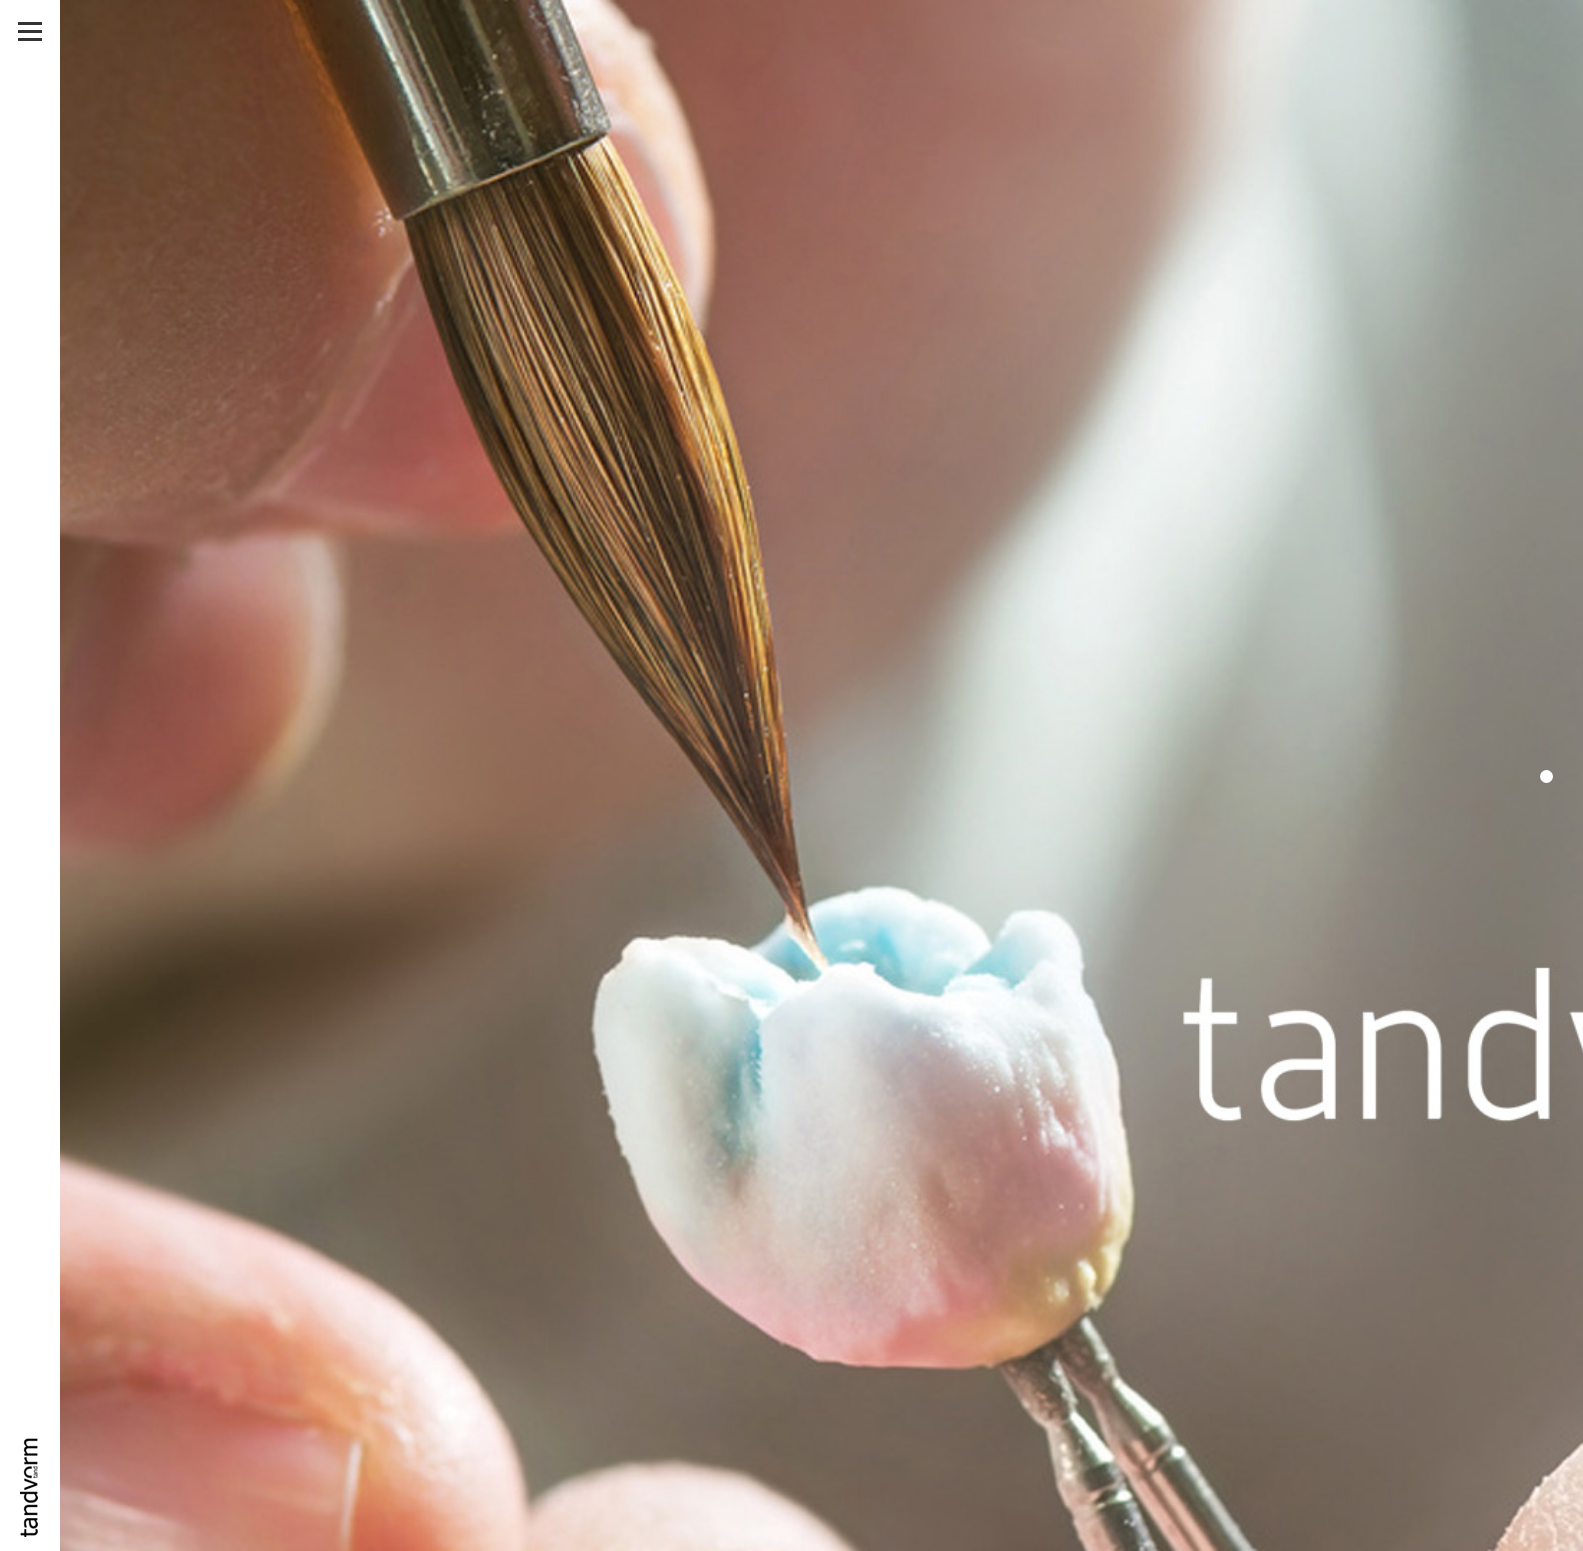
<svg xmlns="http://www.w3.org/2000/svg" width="1583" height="1551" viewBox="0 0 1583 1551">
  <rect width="100%" height="100%" fill="rgb(255,255,255)"/>
  <rect x="18" y="30" width="24" height="3" fill="rgb(51,51,51)"/>
  <rect x="18" y="22" width="24" height="3" fill="rgb(51,51,51)"/>
  <rect x="18" y="38" width="24" height="3" fill="rgb(51,51,51)"/>
  <image x="20" y="1438" width="18" height="99" href="pic1.png"/>
  <image x="60" y="0" width="1523" height="1551" href="pic2.png"/>
  <circle cx="1546.5" cy="776.5" r="6.5" fill="rgb(255,255,255)"/>
</svg>
